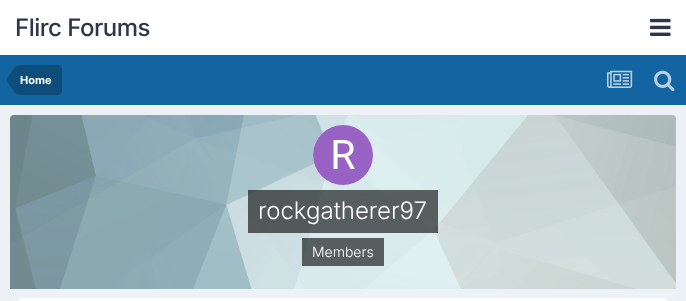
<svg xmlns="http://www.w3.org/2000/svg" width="686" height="301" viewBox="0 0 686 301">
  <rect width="100%" height="100%" fill="rgb(237,240,244)"/>
  <rect x="0" y="0" width="686" height="55" fill="rgb(255,255,255)"/>
  <text x="15" y="36" font-family="Inter" font-size="24" font-weight="500" letter-spacing="-0.5" fill="rgb(45,55,72)">Flirc Forums</text>
  <image x="650" y="18" width="21" height="18" href="pic1.png"/>
  <rect x="0" y="55" width="686" height="50" fill="rgb(18,101,161)"/>
  <path d="M20 65H57C60 65 62 67 62 70V90C62 93 60 95 57 95H20Z" fill="rgb(14,76,121)"/>
  <path d="M20 80V95C15.5 95 13.5 90.5 11 87C9.5 85 7 83 7 80ZM20 80H7C7 77 9.5 75 11 73C13.5 69.5 15.5 65 20 65Z" fill="rgb(14,76,121)"/>
  <text x="20" y="84" font-family="Inter" font-size="11" font-weight="bold" fill="rgb(255,255,255)">Home</text>
  <image x="607" y="70" width="26" height="18" href="pic2.png"/>
  <image x="654" y="70" width="21" height="22" href="pic3.png"/>
  <path d="M14 115H672C674 115 676 117 676 119V289H10V119C10 117 12 115 14 115Z" fill="rgb(153,243,255)"/>
  <image x="10" y="115" width="666" height="174" href="pic4.png"/>
  <circle cx="343" cy="155" r="30" fill="rgb(255,255,255)"/>
  <image x="313" y="125" width="60" height="60" href="pic5.png"/>
  <rect x="248" y="190" width="190" height="43" fill="rgba(0,0,0,0.6)"/>
  <text x="258" y="219" font-family="Inter" font-size="24" font-weight="300" fill="rgb(255,255,255)">rockgatherer97</text>
  <rect x="302" y="238" width="82" height="28" fill="rgba(0,0,0,0.6)"/>
  <text x="312" y="257" font-family="Inter" font-size="14" font-weight="300" fill="rgb(255,255,255)">Members</text>
  <rect x="10" y="289" width="666" height="12" fill="rgb(237,242,247)"/>
  <rect x="18" y="297" width="650" height="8" rx="4" fill="rgb(255,255,255)"/>
  <rect x="18.5" y="297.5" width="649" height="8" rx="3.5" fill="none" stroke="rgba(14,76,121,0.07)"/>
</svg>
